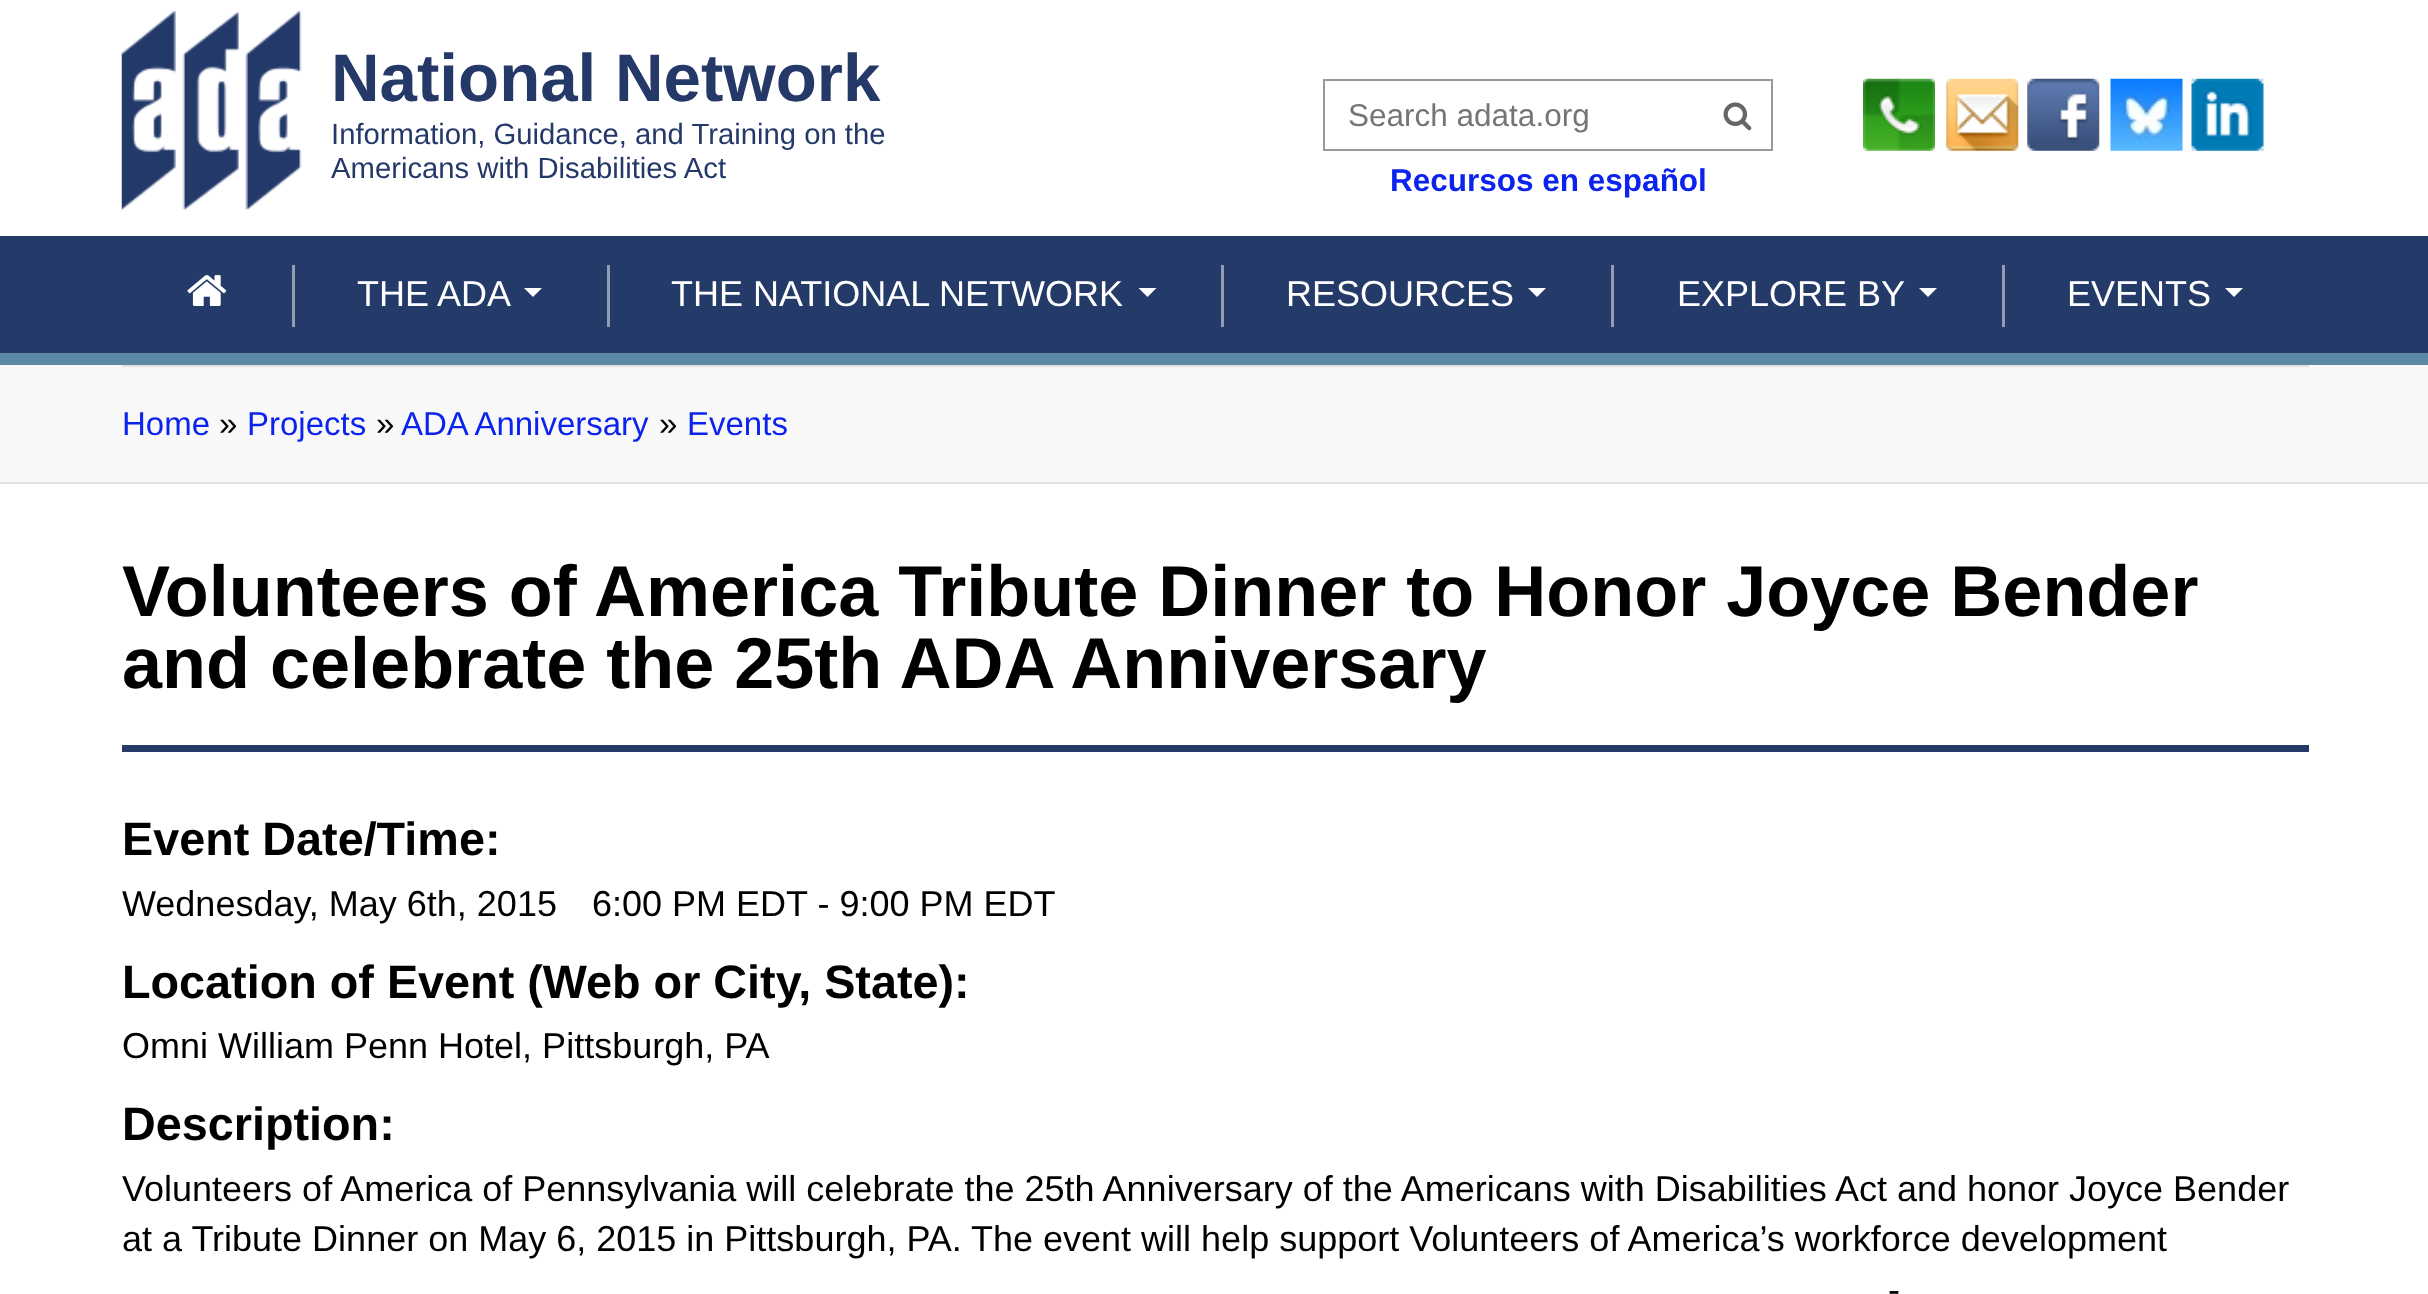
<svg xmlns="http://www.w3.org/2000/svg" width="2428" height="1294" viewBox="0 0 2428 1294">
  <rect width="100%" height="100%" fill="rgb(255,255,255)"/>
  <image x="121" y="11" width="181" height="199" href="pic1.png"/>
  <text x="331" y="101" font-family="Liberation Sans" font-size="67.25" font-weight="bold" fill="rgb(37,57,105)">National Network</text>
  <g font-family="Liberation Sans" font-size="29.25" fill="rgb(37,57,105)">
    <text>
      <tspan x="331" y="144">Information, Guidance, and Training on the</tspan>
      <tspan x="331" y="178">Americans with Disabilities Act</tspan>
    </text>
  </g>
  <rect x="1324" y="80" width="448" height="70" fill="none" stroke="rgb(153,153,153)" stroke-width="2"/>
  <text x="1348" y="126" font-family="Liberation Sans" font-size="31.5" fill="rgb(117,117,117)">Search adata.org</text>
  <image x="1723" y="102" width="29" height="29" href="pic2.png"/>
  <text x="1390" y="191" font-family="Liberation Sans" font-size="31.5" font-weight="bold" fill="rgb(12,35,238)">Recursos en español</text>
  <image x="1863" y="78" width="72" height="73" href="pic3.png"/>
  <image x="1946" y="78" width="73" height="73" href="pic4.png"/>
  <image x="2027" y="78" width="73" height="73" href="pic5.png"/>
  <image x="2110" y="78" width="73" height="73" href="pic6.png"/>
  <image x="2191" y="78" width="73" height="73" href="pic7.png"/>
  <rect x="0" y="353" width="2428" height="12" fill="rgb(91,136,165)"/>
  <rect x="0" y="236" width="2428" height="117" fill="rgb(36,58,105)"/>
  <image x="187" y="275" width="40" height="31" href="pic8.png"/>
  <rect x="292" y="265" width="3" height="62" fill="rgb(146,157,180)"/>
  <text x="357" y="306" font-family="Liberation Sans" font-size="36" fill="rgb(255,255,255)">THE ADA</text>
  <path d="M524 288H542L533 297Z" fill="rgb(255,255,255)"/>
  <rect x="607" y="265" width="3" height="62" fill="rgb(146,157,180)"/>
  <text x="671" y="306" font-family="Liberation Sans" font-size="36" fill="rgb(255,255,255)">THE NATIONAL NETWORK</text>
  <path d="M1138.5 288H1156.5L1147.5 297Z" fill="rgb(255,255,255)"/>
  <rect x="1221" y="265" width="3" height="62" fill="rgb(146,157,180)"/>
  <text x="1286" y="306" font-family="Liberation Sans" font-size="36" fill="rgb(255,255,255)">RESOURCES</text>
  <path d="M1528 288H1546L1537 297Z" fill="rgb(255,255,255)"/>
  <rect x="1611" y="265" width="3" height="62" fill="rgb(146,157,180)"/>
  <text x="1677" y="306" font-family="Liberation Sans" font-size="36" fill="rgb(255,255,255)">EXPLORE BY</text>
  <path d="M1919 288H1937L1928 297Z" fill="rgb(255,255,255)"/>
  <rect x="2002" y="265" width="3" height="62" fill="rgb(146,157,180)"/>
  <text x="2067" y="306" font-family="Liberation Sans" font-size="36" fill="rgb(255,255,255)">EVENTS</text>
  <path d="M2225 288H2243L2234 297Z" fill="rgb(255,255,255)"/>
  <rect x="0" y="365" width="2428" height="117" fill="rgb(248,248,248)"/>
  <rect x="0" y="482" width="2428" height="2" fill="rgb(226,226,226)"/>
  <rect x="122" y="365" width="2187" height="2" fill="rgb(226,226,226)"/>
  <text x="122" y="435" font-family="Liberation Sans" font-size="33" fill="rgb(12,35,238)">Home</text>
  <text x="219" y="435" font-family="Liberation Sans" font-size="33" fill="rgb(0,0,0)">»</text>
  <text x="247" y="435" font-family="Liberation Sans" font-size="33" fill="rgb(12,35,238)">Projects</text>
  <text x="376" y="435" font-family="Liberation Sans" font-size="33" fill="rgb(0,0,0)">»</text>
  <text x="401" y="435" font-family="Liberation Sans" font-size="33" fill="rgb(12,35,238)">ADA Anniversary</text>
  <text x="659" y="435" font-family="Liberation Sans" font-size="33" fill="rgb(0,0,0)">»</text>
  <text x="687" y="435" font-family="Liberation Sans" font-size="33" fill="rgb(12,35,238)">Events</text>
  <rect x="122" y="745" width="2187" height="7" fill="rgb(36,58,105)"/>
  <g font-family="Liberation Sans" font-size="72" font-weight="bold" fill="rgb(0,0,0)">
    <text>
      <tspan x="122" y="616">Volunteers of America Tribute Dinner to Honor Joyce Bender</tspan>
      <tspan x="122" y="688">and celebrate the 25th ADA Anniversary</tspan>
    </text>
  </g>
  <text x="122" y="855" font-family="Liberation Sans" font-size="46.75" font-weight="bold" fill="rgb(0,0,0)">Event Date/Time:</text>
  <g font-family="Liberation Sans" font-size="36" fill="rgb(0,0,0)">
    <text x="122" y="916">Wednesday, May 6th, 2015</text>
    <text x="592" y="916">6:00 PM EDT - 9:00 PM EDT</text>
  </g>
  <text x="122" y="998" font-family="Liberation Sans" font-size="46.75" font-weight="bold" fill="rgb(0,0,0)">Location of Event (Web or City, State):</text>
  <text x="122" y="1058" font-family="Liberation Sans" font-size="36" fill="rgb(0,0,0)">Omni William Penn Hotel, Pittsburgh, PA</text>
  <text x="122" y="1140" font-family="Liberation Sans" font-size="46.75" font-weight="bold" fill="rgb(0,0,0)">Description:</text>
  <g font-family="Liberation Sans" font-size="36" fill="rgb(0,0,0)">
    <text>
      <tspan x="122" y="1201">Volunteers of America of Pennsylvania will celebrate the 25th Anniversary of the Americans with Disabilities Act and honor Joyce Bender</tspan>
      <tspan x="122" y="1251">at a Tribute Dinner on May 6, 2015 in Pittsburgh, PA.</tspan>
    </text>
    <text x="971" y="1251">The event will help support Volunteers of America’s workforce development</text>
    <text x="1888" y="1302">-</text>
  </g>
</svg>
